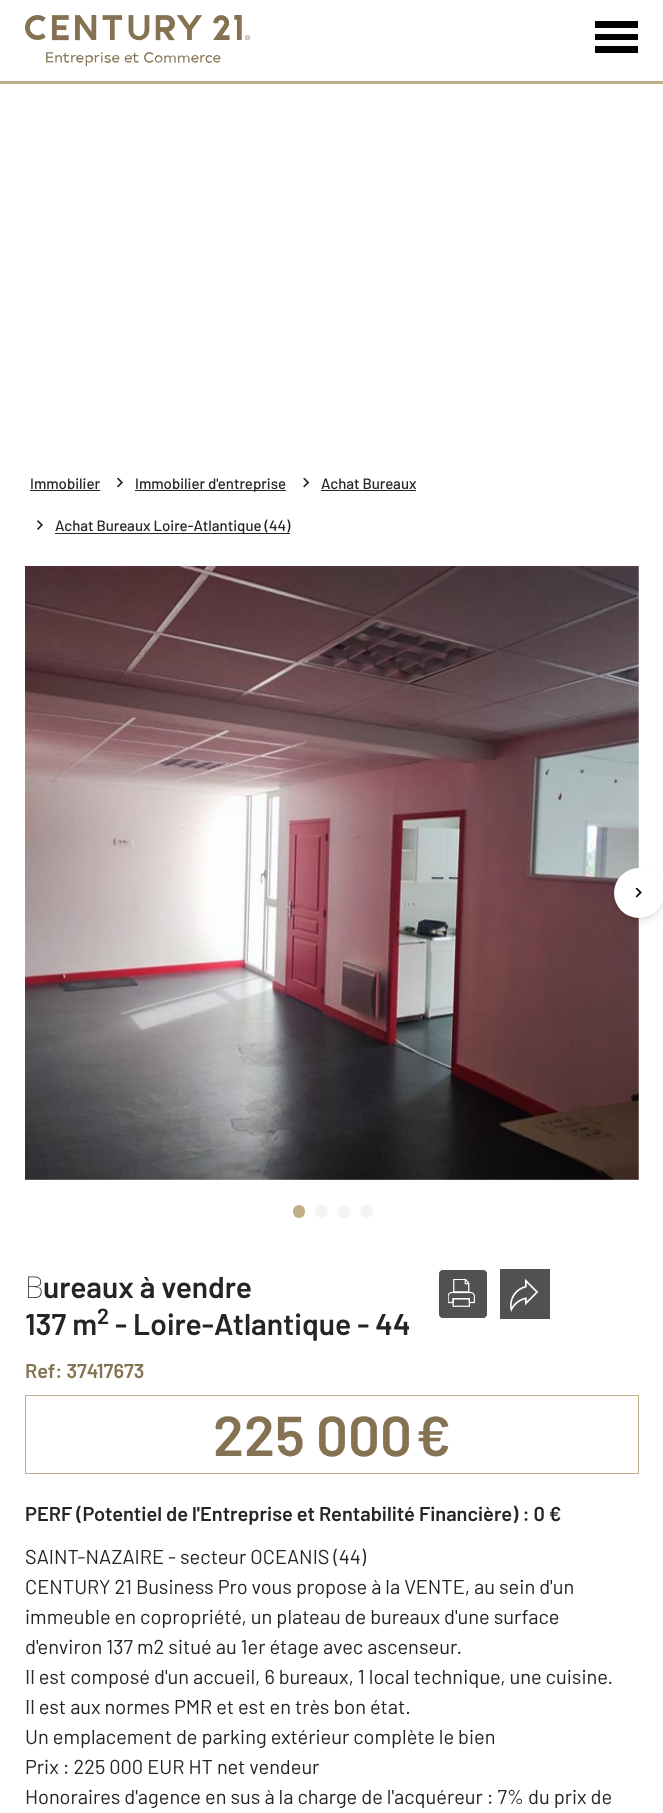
async function draw(canvas) {
	canvas.width = 663;
	canvas.height = 1813;
	const c = canvas.getContext('2d');
	c.miterLimit = 4;
	c.fontKerning = 'normal';
	async function loadImage(src) {
		const img = new Image();
		img.src = src;
		await img.decode();
		return img;
	}

	c.fillStyle = '#fff';
	c.fillRect(0, 0, 663, 1813);
	c.fillStyle = '#beaf87';
	c.fillRect(0, 81, 663, 3);
	c.drawImage(await loadImage('img1.png'), 25, 15, 225, 51);
	for (const [x, y, w, h, color] of [
		[595, 46, 43, 7, '#000'],
		[595, 21, 43, 7, '#000'],
		[595, 34, 43, 6, '#000'],
	]) {
		c.fillStyle = color;
		c.fillRect(x, y, w, h);
	}
	c.font = '500 15px Barlow';
	c.fillStyle = '#252526';
	c.fillText('Immobilier', 30, 489);
	c.fillRect(30, 490, 70, 1);
	c.drawImage(await loadImage('img2.png'), 117, 478, 6, 10);
	c.fillRect(135, 490, 151, 1);
	c.fillText('Immobilier d\'entreprise', 135, 489);
	c.drawImage(await loadImage('img3.png'), 303, 478, 7, 10);
	c.fillText('Achat Bureaux', 321, 489);
	c.fillRect(321, 490, 95, 1);
	c.drawImage(await loadImage('img4.png'), 37, 520, 6, 10);
	c.fillRect(55, 533, 235, 1);
	c.fillText('Achat Bureaux Loire-Atlantique (44)', 55, 531);
	c.drawImage(await loadImage('img5.png'), 25, 566, 614, 614);
	c.fillStyle = '#0000001a';
	c.filter = 'blur(2.5px)';
	c.beginPath();
	c.roundRect(616, 873, 45, 45, 22.5);
	c.fill();
	c.filter = 'none';
	c.filter = 'blur(4px)';
	c.beginPath();
	c.roundRect(615, 874, 48, 47, 23.5);
	c.fill();
	c.filter = 'none';
	c.fillStyle = '#fff';
	c.beginPath();
	c.arc(639, 893, 25, 0, 2 * Math.PI);
	c.fill();
	c.drawImage(await loadImage('img6.png'), 635, 888, 7, 10);
	c.fillStyle = '#beaf87';
	c.beginPath();
	c.roundRect(293, 1205, 12, 13, 6);
	c.fill();
	c.fillStyle = '#f4f4f4';
	c.beginPath();
	c.arc(321.5, 1211.5, 6.5, 0, 2 * Math.PI);
	c.fill();
	c.beginPath();
	c.roundRect(338, 1205, 12, 13, 6);
	c.fill();
	c.beginPath();
	c.arc(366.5, 1211.5, 6.5, 0, 2 * Math.PI);
	c.fill();
	c.font = '100 30px Noto Sans';
	c.fillStyle = '#252526';
	c.fillText('B', 25, 1298);
	c.font = '600 30px Barlow';
	c.fillText('ureaux à vendre', 43, 1298);
	c.fillText('137 m', 25, 1335);
	c.font = '600 22px Barlow';
	c.fillText('2', 97, 1324);
	c.font = '600 30px Barlow';
	c.fillText('- Loire-Atlantique - 44', 115, 1335);
	c.fillStyle = '#515151';
	c.beginPath();
	c.roundRect(438.5, 1269.5, 49, 49, 4.5);
	c.fill();
	c.strokeStyle = '#fff';
	c.stroke();
	c.drawImage(await loadImage('img7.png'), 448, 1279, 27, 28);
	c.fillRect(500, 1269, 50, 50);
	c.drawImage(await loadImage('img8.png'), 510, 1279, 29, 33);
	c.font = '600 20px Barlow';
	c.fillStyle = '#847252';
	c.fillText('Ref: 37417673', 25, 1378);
	c.strokeStyle = '#beaf87';
	c.strokeRect(25.5, 1395.5, 613, 78);
	c.font = '600 56.25px Barlow';
	c.fillText('225 000 €', 213, 1456);
	c.font = '600 20px Barlow';
	c.fillStyle = '#252526';
	c.fillText('PERF (Potentiel de l\'Entreprise et Rentabilité Financière) : 0 €', 25, 1521);
	c.font = '20px Barlow';
	for (const [text, x, y] of [
		['SAINT-NAZAIRE - secteur OCEANIS (44)', 25, 1564],
		['CENTURY 21 Business Pro vous propose à la VENTE, au sein d\'un', 25, 1594],
		['immeuble en copropriété, un plateau de bureaux d\'une surface', 25, 1624],
		['d\'environ 137 m2 situé au 1er étage avec ascenseur.', 25, 1654],
		['Il est composé d\'un accueil, 6 bureaux, 1 local technique, une cuisine.', 25, 1684],
		['Il est aux normes PMR et est en très bon état.', 25, 1714],
		['Un emplacement de parking extérieur complète le bien', 25, 1744],
		['Prix : 225 000 EUR HT net vendeur', 25, 1774],
		['Honoraires d\'agence en sus à la charge de l\'acquéreur : 7% du prix de', 25, 1804],
	]) {
		c.fillText(text, x, y);
	}
}

draw(document.querySelector('canvas'));
